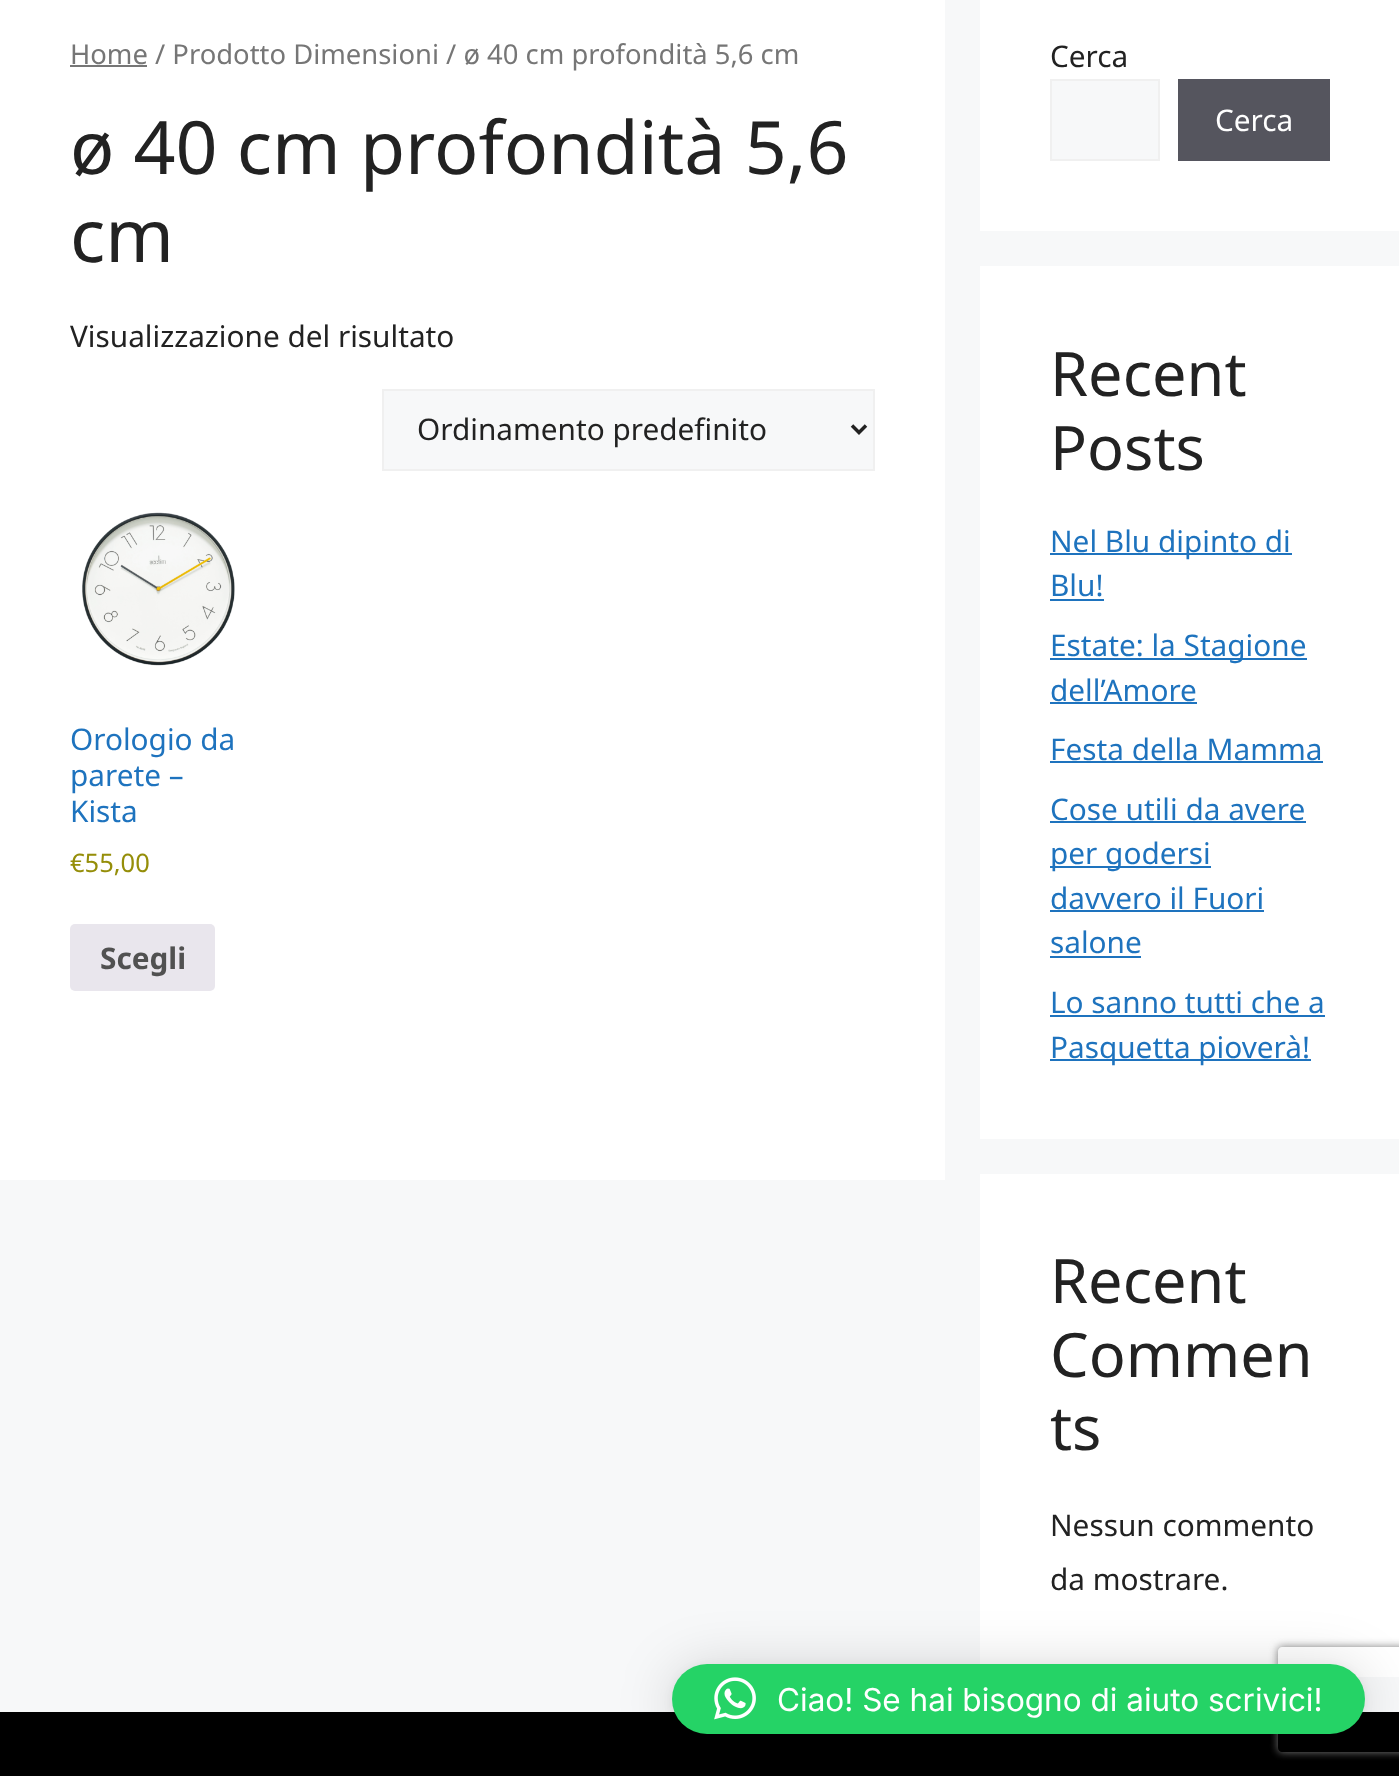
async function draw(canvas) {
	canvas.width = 1399;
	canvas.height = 1776;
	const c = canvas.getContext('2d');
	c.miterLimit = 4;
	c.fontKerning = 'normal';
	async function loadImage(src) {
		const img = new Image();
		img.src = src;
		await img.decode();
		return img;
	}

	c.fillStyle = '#f7f8f9';
	c.fillRect(0, 0, 1399, 1776);
	c.fillStyle = '#fff';
	c.fillRect(0, 0, 945, 1180);
	c.fillStyle = '#767676';
	c.fillRect(70, 65, 77, 2);
	c.font = '27.4px Noto Sans';
	c.fillText('Home / Prodotto Dimensioni / ø 40 cm profondità 5,6 cm', 70, 64);
	c.font = '73.5px Noto Sans';
	c.fillStyle = '#222';
	c.fillText('ø 40 cm profondità 5,6', 70, 174);
	c.fillText('cm', 70, 262);
	c.font = '29.75px Noto Sans';
	c.fillText('Visualizzazione del risultato', 70, 347);
	c.fillStyle = '#f7f8f9';
	c.beginPath();
	c.rect(383, 390, 491, 80);
	c.fill();
	c.strokeStyle = '#f0f0f0';
	c.lineWidth = 2;
	c.stroke();
	c.beginPath();
	c.moveTo(852, 425.5);
	c.lineTo(859, 432.5);
	c.lineTo(866, 425.5);
	c.strokeStyle = '#222';
	c.lineWidth = 3.5;
	c.stroke();
	c.fillStyle = '#222';
	c.fillText('Ordinamento predefinito', 417, 440);
	c.drawImage(await loadImage('img1.png'), 82, 512, 153, 154);
	c.fillStyle = '#1e73be';
	for (const [text, x, y] of [
		['Orologio da', 70, 750],
		['parete –', 70, 786],
		['Kista', 70, 822],
	]) {
		c.fillText(text, x, y);
	}
	c.font = '25.5px Noto Sans';
	c.fillStyle = '#958e09';
	c.fillText('€55,00', 70, 872);
	c.fillStyle = '#e9e6ed';
	c.beginPath();
	c.roundRect(70, 924, 145, 67, 5);
	c.fill();
	c.font = 'bold 29.75px Noto Sans';
	c.fillStyle = '#515151';
	c.fillText('Scegli', 100, 969);
	c.fillStyle = '#fff';
	c.fillRect(980, 0, 419, 231);
	c.font = '29.75px Noto Sans';
	c.fillStyle = '#222';
	c.fillText('Cerca', 1050, 67);
	c.fillStyle = '#f7f8f9';
	c.beginPath();
	c.rect(1051, 80, 108, 80);
	c.fill();
	c.strokeStyle = '#f0f0f0';
	c.lineWidth = 2;
	c.stroke();
	c.fillStyle = '#55555e';
	c.fillRect(1178, 79, 152, 82);
	c.fillStyle = '#fff';
	c.fillText('Cerca', 1215, 131);
	c.fillRect(980, 266, 419, 873);
	c.font = '61.25px Noto Sans';
	c.fillStyle = '#222';
	c.fillText('Recent', 1050, 396);
	c.fillText('Posts', 1050, 470);
	c.fillStyle = '#1e73be';
	c.fillRect(1050, 553, 242, 2);
	c.font = '29.75px Noto Sans';
	c.fillText('Nel Blu dipinto di', 1050, 552);
	c.fillText('Blu!', 1050, 596);
	c.fillRect(1050, 599, 54, 2);
	c.fillRect(1050, 658, 257, 2);
	c.fillText('Estate: la Stagione', 1050, 656);
	c.fillText('dell’Amore', 1050, 701);
	c.fillRect(1050, 702, 147, 2);
	c.fillText('Festa della Mamma', 1050, 760);
	c.fillRect(1050, 761, 273, 2);
	c.fillText('Cose utili da avere', 1050, 820);
	c.fillRect(1050, 821, 256, 2);
	c.fillRect(1050, 866, 161, 2);
	c.fillText('per godersi', 1050, 864);
	c.fillText('davvero il Fuori', 1050, 909);
	c.fillRect(1050, 910, 214, 2);
	c.fillText('salone', 1050, 953);
	c.fillRect(1050, 956, 91, 2);
	c.fillText('Lo sanno tutti che a', 1050, 1013);
	c.fillRect(1050, 1015, 275, 2);
	c.fillRect(1050, 1059, 261, 2);
	c.fillText('Pasquetta pioverà!', 1050, 1058);
	c.fillStyle = '#fff';
	c.fillRect(980, 1174, 419, 503);
	c.font = '61.25px Noto Sans';
	c.fillStyle = '#222';
	for (const [text, x, y] of [
		['Recent', 1050, 1303],
		['Commen', 1050, 1377],
		['ts', 1050, 1450],
	]) {
		c.fillText(text, x, y);
	}
	c.font = '29.75px Noto Sans';
	c.fillText('Nessun commento', 1050, 1536);
	c.fillText('da mostrare.', 1050, 1590);
	c.fillStyle = '#000';
	c.fillRect(0, 1712, 1399, 64);
	c.save();
	c.beginPath();
	c.moveTo(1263, 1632);
	c.lineTo(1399, 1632);
	c.lineTo(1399, 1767);
	c.lineTo(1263, 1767);
	c.closePath();
	c.moveTo(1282, 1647);
	c.lineTo(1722, 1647);
	c.bezierCurveTo(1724, 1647, 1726, 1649, 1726, 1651);
	c.lineTo(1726, 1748);
	c.bezierCurveTo(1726, 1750, 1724, 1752, 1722, 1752);
	c.lineTo(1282, 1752);
	c.bezierCurveTo(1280, 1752, 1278, 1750, 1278, 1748);
	c.lineTo(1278, 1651);
	c.bezierCurveTo(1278, 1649, 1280, 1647, 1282, 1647);
	c.closePath();
	c.clip('evenodd');
	c.fillStyle = '#808080';
	c.filter = 'blur(4.5px)';
	c.beginPath();
	c.roundRect(1278, 1647, 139, 105, 4);
	c.fill();
	c.filter = 'none';
	c.restore();
	c.fillStyle = '#00000029';
	c.filter = 'blur(28px)';
	c.beginPath();
	c.roundRect(672, 1668, 693, 70, 35);
	c.fill();
	c.filter = 'none';
	c.fillStyle = '#0000000f';
	c.filter = 'blur(5px)';
	c.beginPath();
	c.roundRect(672, 1666, 693, 70, 35);
	c.fill();
	c.filter = 'none';
	c.fillStyle = '#25d366';
	c.beginPath();
	c.roundRect(672, 1664, 693, 70, 35);
	c.fill();
	c.drawImage(await loadImage('img2.png'), 714, 1677, 42, 43);
	c.font = '31.5px Inter';
	c.fillStyle = '#fff';
	c.fillText('Ciao! Se hai bisogno di aiuto scrivici!', 777, 1711);
}

draw(document.querySelector('canvas'));
